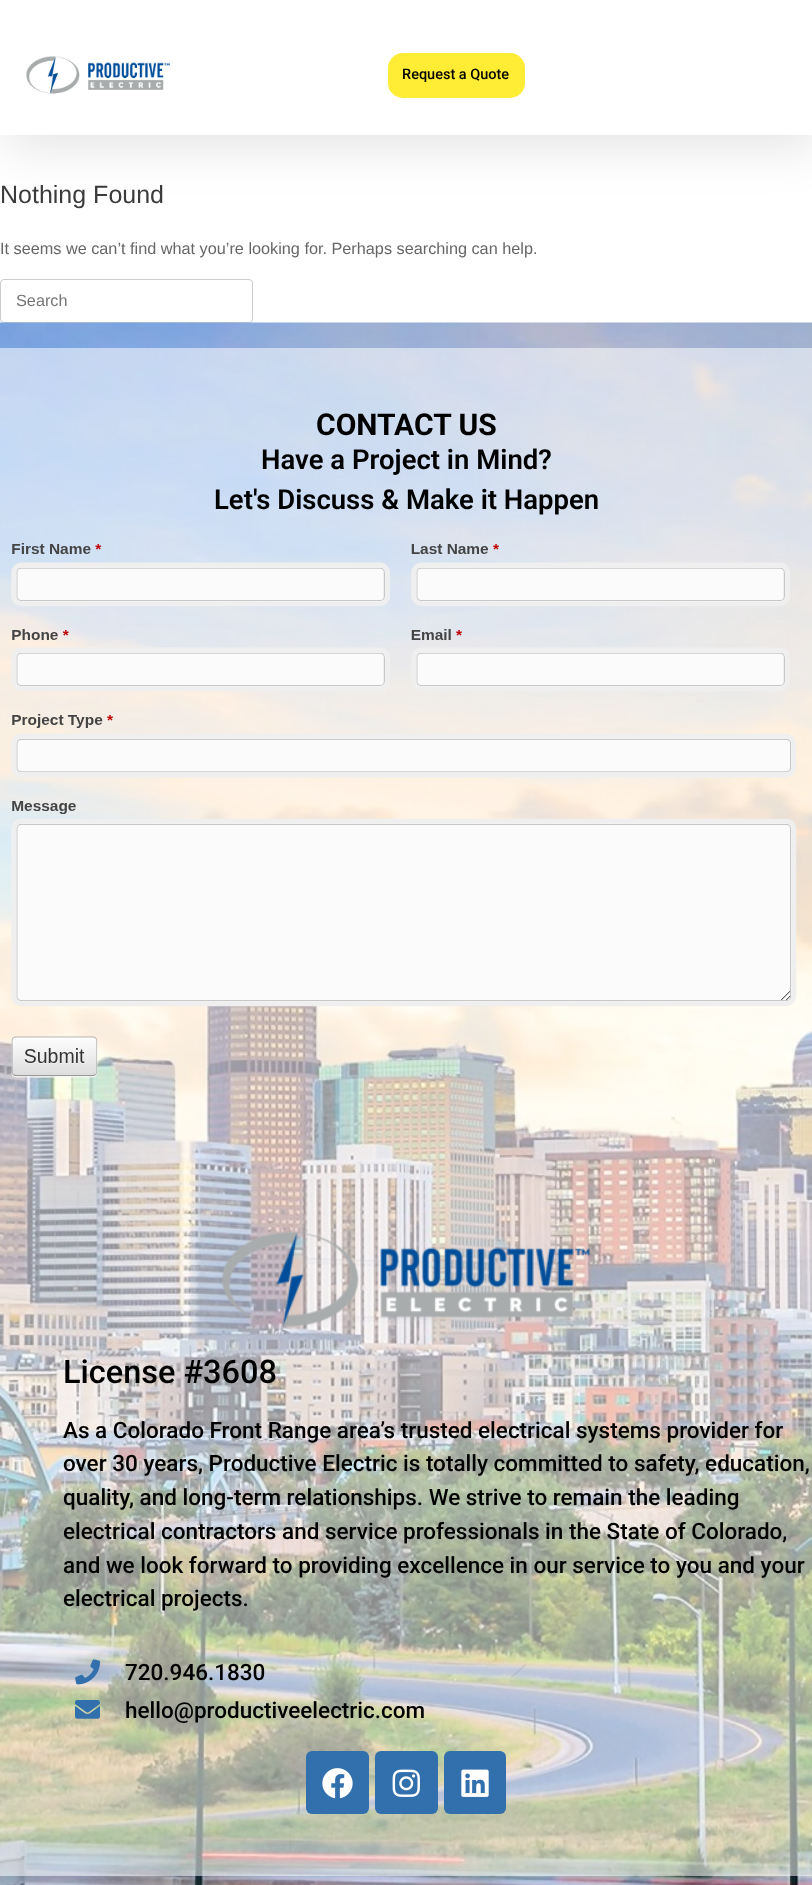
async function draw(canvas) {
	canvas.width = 812;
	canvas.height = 1885;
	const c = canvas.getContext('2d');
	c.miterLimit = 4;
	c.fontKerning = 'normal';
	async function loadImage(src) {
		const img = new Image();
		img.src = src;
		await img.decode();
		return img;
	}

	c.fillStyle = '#fff';
	c.fillRect(0, 0, 812, 1885);
	c.fillStyle = '#0000001a';
	c.filter = 'blur(24px)';
	c.beginPath();
	c.rect(6, 13, 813, 135);
	c.fill();
	c.filter = 'none';
	c.fillStyle = '#fff';
	c.fillRect(0, 0, 812, 135);
	c.drawImage(await loadImage('img1.png'), 26, 56, 144, 38);
	c.fillStyle = '#ffec35';
	c.beginPath();
	c.roundRect(388, 53, 137, 45, 15);
	c.fill();
	c.font = '500 14.5px Roboto';
	c.fillStyle = '#000';
	c.fillText('Request a Quote', 402, 79);
	c.font = '25px Liberation Sans';
	c.fillStyle = '#3b3b3b';
	c.fillText('Nothing Found', 0, 203);
	c.font = '16.25px Liberation Sans';
	c.fillStyle = '#666';
	c.fillText('It seems we can’t find what you’re looking for. Perhaps searching can help.', 0, 254);
	c.beginPath();
	c.roundRect(0.5, 279.5, 252, 43, 3.5);
	c.strokeStyle = '#ccc';
	c.stroke();
	c.fillStyle = '#757575';
	c.fillText('Search', 16, 306);
	c.drawImage(await loadImage('img2.png'), 0, 322, 812, 1563);
	c.fillStyle = '#ffffff8a';
	c.fillRect(0, 348, 812, 881);
	c.font = 'bold 30px Roboto';
	c.fillStyle = '#000';
	c.fillText('CONTACT US', 316, 435);
	c.font = '600 27.5px Roboto';
	c.fillText('Have a Project in Mind?', 261, 469);
	c.fillText('Let\'s Discuss & Make it Happen', 214, 509);
	c.drawImage(await loadImage('img3.png'), 11, 543, 786, 535);
	c.fillStyle = '#ffffff8a';
	c.fillRect(0, 1229, 812, 647);
	c.drawImage(await loadImage('img4.png'), 221, 1231, 370, 96);
	c.font = '500 32.5px Roboto';
	c.fillStyle = '#000';
	c.fillText('License #3608', 63, 1383);
	c.font = '500 22.5px Roboto';
	for (const [text, x, y] of [
		['As a Colorado Front Range area’s trusted electrical systems provider for', 63, 1438],
		['over 30 years, Productive Electric is totally committed to safety, education,', 63, 1471],
		['quality, and long-term relationships. We strive to remain the leading', 63, 1505],
		['electrical contractors and service professionals in the State of Colorado,', 63, 1539],
		['and we look forward to providing excellence in our service to you and your', 63, 1573],
		['electrical projects.', 63, 1606],
	]) {
		c.fillText(text, x, y);
	}
	c.drawImage(await loadImage('img5.png'), 75, 1659, 25, 26);
	c.fillText('720.946.1830', 125, 1680);
	c.drawImage(await loadImage('img6.png'), 75, 1700, 25, 19);
	c.fillText('hello@productiveelectric.com', 125, 1718);
	c.fillStyle = '#3270ad';
	c.beginPath();
	c.roundRect(306, 1751, 63, 63, 6);
	c.fill();
	c.drawImage(await loadImage('img7.png'), 322, 1768, 31, 31);
	c.beginPath();
	c.roundRect(375, 1751, 63, 63, 6);
	c.fill();
	c.drawImage(await loadImage('img8.png'), 392, 1769, 28, 28);
	c.beginPath();
	c.roundRect(444, 1751, 62, 63, 6);
	c.fill();
	c.drawImage(await loadImage('img9.png'), 461, 1769, 28, 28);
}

draw(document.querySelector('canvas'));
